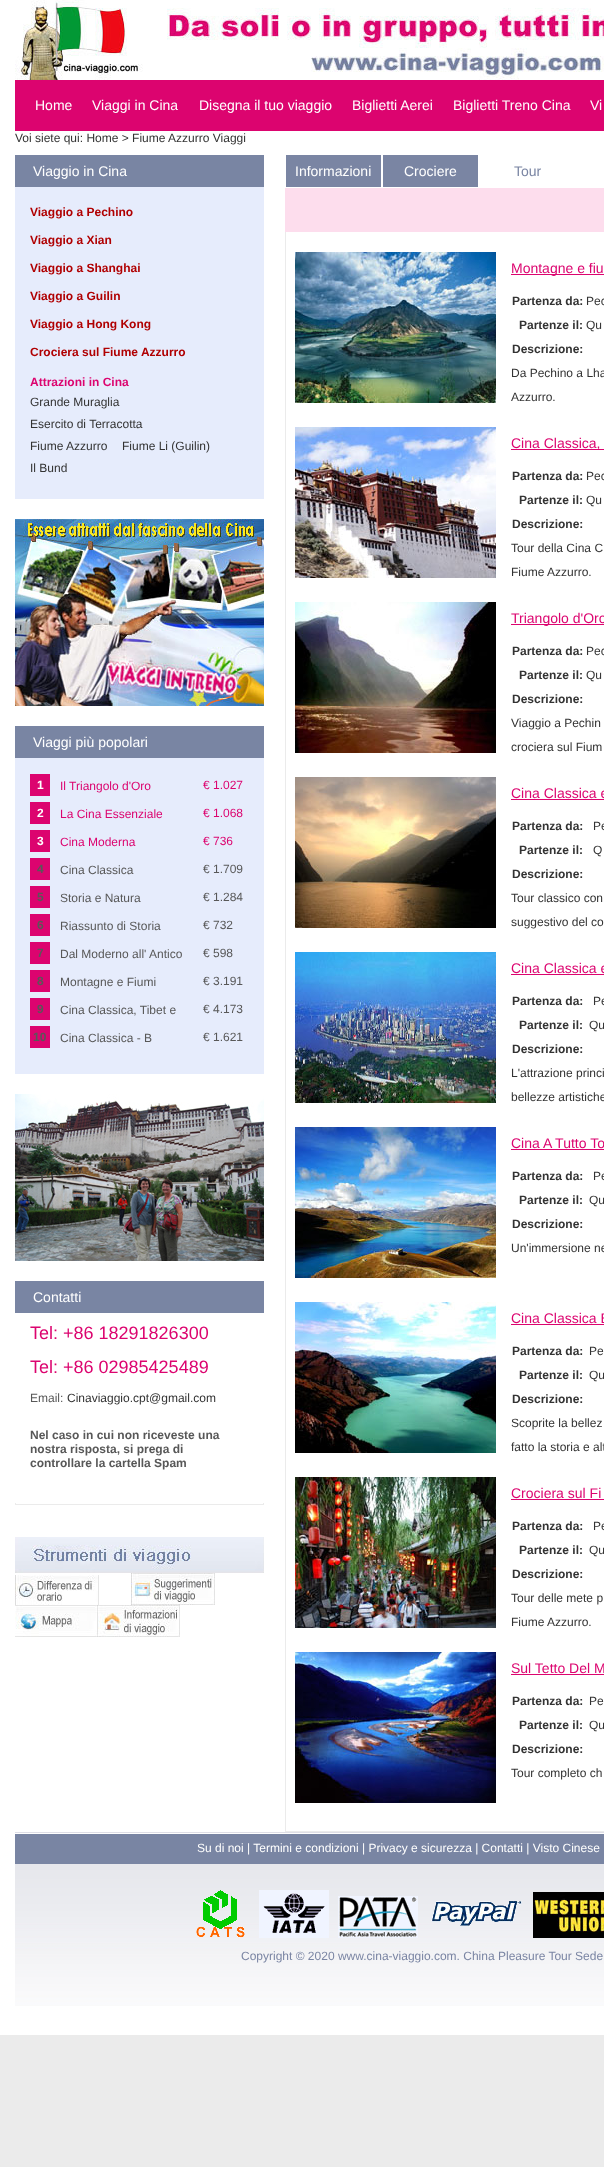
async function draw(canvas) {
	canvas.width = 604;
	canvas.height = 2167;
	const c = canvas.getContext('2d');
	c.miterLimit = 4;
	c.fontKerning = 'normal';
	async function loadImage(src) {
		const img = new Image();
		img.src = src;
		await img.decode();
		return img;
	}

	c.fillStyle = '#ebebeb';
	c.fillRect(0, 0, 604, 2167);
	c.fillStyle = '#fff';
	c.fillRect(0, 0, 604, 2035);
	c.drawImage(await loadImage('img1.png'), 15, 0, 589, 80);
	c.fillStyle = '#dc046f';
	c.fillRect(15, 80, 589, 51);
	c.font = '14px Liberation Sans';
	c.fillStyle = '#fff';
	for (const [text, x, y] of [
		['Home', 35, 110],
		['Viaggi in Cina', 92, 110],
		['Disegna il tuo viaggio', 199, 110],
		['Biglietti Aerei', 352, 110],
		['Biglietti Treno Cina', 453, 110],
		['Vi', 590, 110],
	]) {
		c.fillText(text, x, y);
	}
	c.font = '12px Liberation Sans';
	c.fillStyle = '#333';
	c.fillText('Voi siete qui: Home > Fiume Azzurro Viaggi', 15, 142);
	c.fillStyle = '#7985a3';
	c.fillRect(15, 155, 249, 32);
	c.font = '14px Liberation Sans';
	c.fillStyle = '#fff';
	c.fillText('Viaggio in Cina', 33, 176);
	c.fillStyle = '#e6ecfc';
	c.fillRect(15, 187, 249, 312);
	c.font = 'bold 12px Liberation Sans';
	c.fillStyle = '#b00002';
	for (const [text, x, y] of [
		['Viaggio a Pechino', 30, 216],
		['Viaggio a Xian', 30, 244],
		['Viaggio a Shanghai', 30, 272],
		['Viaggio a Guilin', 30, 300],
		['Viaggio a Hong Kong', 30, 328],
		['Crociera sul Fiume Azzurro', 30, 356],
	]) {
		c.fillText(text, x, y);
	}
	c.fillStyle = '#dc046f';
	c.fillText('Attrazioni in Cina', 30, 386);
	c.font = '12px Liberation Sans';
	c.fillStyle = '#333';
	for (const [text, x, y] of [
		['Grande Muraglia', 30, 406],
		['Esercito di Terracotta', 30, 428],
		['Fiume Azzurro', 30, 450],
		['Fiume Li (Guilin)', 122, 450],
		['Il Bund', 30, 472],
	]) {
		c.fillText(text, x, y);
	}
	c.drawImage(await loadImage('img2.png'), 15, 519, 249, 187);
	c.fillStyle = '#7985a3';
	c.fillRect(15, 726, 249, 32);
	c.font = '14px Liberation Sans';
	c.fillStyle = '#fff';
	c.fillText('Viaggi più popolari', 33, 747);
	c.fillStyle = '#e6ecfc';
	c.fillRect(15, 758, 249, 316);
	c.fillStyle = '#dc046f';
	c.fillRect(30, 774, 20, 22);
	c.font = 'bold 12px Liberation Sans';
	c.fillStyle = '#fff';
	c.fillText('1', 37, 789);
	c.font = '12px Liberation Sans';
	c.fillStyle = '#dc046f';
	c.fillText('Il Triangolo d\'Oro', 60, 790);
	c.fillText('€ 1.027', 203, 789);
	c.fillRect(30, 802, 20, 22);
	c.font = 'bold 12px Liberation Sans';
	c.fillStyle = '#fff';
	c.fillText('2', 37, 817);
	c.font = '12px Liberation Sans';
	c.fillStyle = '#dc046f';
	c.fillText('La Cina Essenziale', 60, 818);
	c.fillText('€ 1.068', 203, 817);
	c.fillRect(30, 830, 20, 22);
	c.font = 'bold 12px Liberation Sans';
	c.fillStyle = '#fff';
	c.fillText('3', 37, 845);
	c.font = '12px Liberation Sans';
	c.fillStyle = '#dc046f';
	c.fillText('Cina Moderna', 60, 846);
	c.fillText('€ 736', 203, 845);
	c.fillRect(30, 858, 20, 22);
	c.font = 'bold 12px Liberation Sans';
	c.fillStyle = '#585858';
	c.fillText('4', 37, 873);
	c.font = '12px Liberation Sans';
	c.fillText('Cina Classica', 60, 874);
	c.fillText('€ 1.709', 203, 873);
	c.fillStyle = '#dc046f';
	c.fillRect(30, 886, 20, 22);
	c.font = 'bold 12px Liberation Sans';
	c.fillStyle = '#585858';
	c.fillText('5', 37, 901);
	c.font = '12px Liberation Sans';
	c.fillText('Storia e Natura', 60, 902);
	c.fillText('€ 1.284', 203, 901);
	c.fillStyle = '#dc046f';
	c.fillRect(30, 914, 20, 22);
	c.font = 'bold 12px Liberation Sans';
	c.fillStyle = '#585858';
	c.fillText('6', 37, 929);
	c.font = '12px Liberation Sans';
	c.fillText('Riassunto di Storia', 60, 930);
	c.fillText('€ 732', 203, 929);
	c.fillStyle = '#dc046f';
	c.fillRect(30, 942, 20, 22);
	c.font = 'bold 12px Liberation Sans';
	c.fillStyle = '#585858';
	c.fillText('7', 37, 957);
	c.font = '12px Liberation Sans';
	c.fillText('Dal Moderno all\' Antico', 60, 958);
	c.fillText('€ 598', 203, 957);
	c.fillStyle = '#dc046f';
	c.fillRect(30, 970, 20, 22);
	c.font = 'bold 12px Liberation Sans';
	c.fillStyle = '#585858';
	c.fillText('8', 37, 985);
	c.font = '12px Liberation Sans';
	c.fillText('Montagne e Fiumi', 60, 986);
	c.fillText('€ 3.191', 203, 985);
	c.fillStyle = '#dc046f';
	c.fillRect(30, 998, 20, 22);
	c.font = 'bold 12px Liberation Sans';
	c.fillStyle = '#585858';
	c.fillText('9', 37, 1013);
	c.font = '12px Liberation Sans';
	c.fillText('Cina Classica, Tibet e', 60, 1014);
	c.fillText('€ 4.173', 203, 1013);
	c.fillStyle = '#dc046f';
	c.fillRect(30, 1026, 20, 22);
	c.font = 'bold 12px Liberation Sans';
	c.fillStyle = '#585858';
	c.fillText('10', 33, 1041);
	c.font = '12px Liberation Sans';
	c.fillText('Cina Classica - B', 60, 1042);
	c.fillText('€ 1.621', 203, 1041);
	c.drawImage(await loadImage('img3.png'), 15, 1094, 249, 167);
	c.fillStyle = '#7985a3';
	c.fillRect(15, 1281, 249, 32);
	c.font = '14px Liberation Sans';
	c.fillStyle = '#fff';
	c.fillText('Contatti', 33, 1302);
	c.font = '18px Liberation Sans';
	c.fillStyle = '#dc046f';
	c.fillText('Tel: +86 18291826300', 30, 1339);
	c.fillText('Tel: +86 02985425489', 30, 1373);
	c.font = '12px Liberation Sans';
	c.fillStyle = '#585858';
	c.fillText('Email:', 30, 1402);
	c.fillStyle = '#333';
	c.fillText('Cinaviaggio.cpt@gmail.com', 67, 1402);
	c.font = 'bold 12px Liberation Sans';
	c.fillStyle = '#585858';
	for (const [text, x, y] of [
		['Nel caso in cui non riceveste una', 30, 1439],
		['nostra risposta, si prega di', 30, 1453],
		['controllare la cartella Spam', 30, 1467],
	]) {
		c.fillText(text, x, y);
	}
	c.drawImage(await loadImage('img4.png'), 15, 1503, 249, 2);
	c.drawImage(await loadImage('img5.png'), 15, 1537, 249, 36);
	c.drawImage(await loadImage('img6.png'), 15, 1575, 84, 30);
	c.drawImage(await loadImage('img7.png'), 131, 1573, 84, 32);
	c.drawImage(await loadImage('img8.png'), 15, 1605, 83, 32);
	c.drawImage(await loadImage('img9.png'), 98, 1605, 82, 32);
	c.fillStyle = '#7a85a3';
	c.fillRect(286, 155, 95, 32);
	c.font = '14px Liberation Sans';
	c.fillStyle = '#fff';
	c.fillText('Informazioni', 295, 176);
	c.fillStyle = '#7a85a3';
	c.fillRect(383, 155, 95, 32);
	c.fillStyle = '#fff';
	c.fillText('Crociere', 404, 176);
	c.fillStyle = '#7a85a3';
	c.fillText('Tour', 514, 176);
	c.fillStyle = '#fddded';
	c.fillRect(285, 188, 319, 44);
	c.fillStyle = '#ebebeb';
	c.fillRect(285, 232, 1, 1598);
	c.drawImage(await loadImage('img10.png'), 295, 252, 201, 151);
	c.fillStyle = '#dc046f';
	c.fillRect(511, 274, 93, 1);
	c.fillText('Montagne e fiu', 511, 273);
	c.font = 'bold 12px Liberation Sans';
	c.fillStyle = '#333';
	c.fillText('Partenza da:', 512, 305);
	c.font = '12px Liberation Sans';
	c.fillText('Pec', 586, 305);
	c.font = 'bold 12px Liberation Sans';
	c.fillText('Partenze il:', 519, 329);
	c.font = '12px Liberation Sans';
	c.fillText('Qu', 586, 329);
	c.font = 'bold 12px Liberation Sans';
	c.fillText('Descrizione:', 512, 353);
	c.font = '12px Liberation Sans';
	c.fillText('Da Pechino a Lha', 511, 377);
	c.fillText('Azzurro.', 511, 401);
	c.drawImage(await loadImage('img11.png'), 295, 427, 201, 151);
	c.fillStyle = '#dc046f';
	c.fillRect(511, 449, 93, 1);
	c.font = '14px Liberation Sans';
	c.fillText('Cina Classica,', 511, 448);
	c.font = 'bold 12px Liberation Sans';
	c.fillStyle = '#333';
	c.fillText('Partenza da:', 512, 480);
	c.font = '12px Liberation Sans';
	c.fillText('Pec', 586, 480);
	c.font = 'bold 12px Liberation Sans';
	c.fillText('Partenze il:', 519, 504);
	c.font = '12px Liberation Sans';
	c.fillText('Qu', 586, 504);
	c.font = 'bold 12px Liberation Sans';
	c.fillText('Descrizione:', 512, 528);
	c.font = '12px Liberation Sans';
	c.fillText('Tour della Cina C', 511, 552);
	c.fillText('Fiume Azzurro.', 511, 576);
	c.drawImage(await loadImage('img12.png'), 295, 602, 201, 151);
	c.fillStyle = '#dc046f';
	c.fillRect(511, 624, 93, 1);
	c.font = '14px Liberation Sans';
	c.fillText('Triangolo d\'Oro', 511, 623);
	c.font = 'bold 12px Liberation Sans';
	c.fillStyle = '#333';
	c.fillText('Partenza da:', 512, 655);
	c.font = '12px Liberation Sans';
	c.fillText('Pec', 586, 655);
	c.font = 'bold 12px Liberation Sans';
	c.fillText('Partenze il:', 519, 679);
	c.font = '12px Liberation Sans';
	c.fillText('Qu', 586, 679);
	c.font = 'bold 12px Liberation Sans';
	c.fillText('Descrizione:', 512, 703);
	c.font = '12px Liberation Sans';
	c.fillText('Viaggio a Pechin', 511, 727);
	c.fillText('crociera sul Fium', 511, 751);
	c.drawImage(await loadImage('img13.png'), 295, 777, 201, 151);
	c.font = '14px Liberation Sans';
	c.fillStyle = '#dc046f';
	c.fillText('Cina Classica e', 511, 798);
	c.fillRect(511, 799, 93, 1);
	c.font = 'bold 12px Liberation Sans';
	c.fillStyle = '#333';
	c.fillText('Partenza da:', 512, 830);
	c.font = '12px Liberation Sans';
	c.fillText('Pe', 593, 830);
	c.font = 'bold 12px Liberation Sans';
	c.fillText('Partenze il:', 519, 854);
	c.font = '12px Liberation Sans';
	c.fillText('Q', 593, 854);
	c.font = 'bold 12px Liberation Sans';
	c.fillText('Descrizione:', 512, 878);
	c.font = '12px Liberation Sans';
	c.fillText('Tour classico con', 511, 902);
	c.fillText('suggestivo del co', 511, 926);
	c.drawImage(await loadImage('img14.png'), 295, 952, 201, 151);
	c.font = '14px Liberation Sans';
	c.fillStyle = '#dc046f';
	c.fillText('Cina Classica e', 511, 973);
	c.fillRect(511, 974, 93, 1);
	c.font = 'bold 12px Liberation Sans';
	c.fillStyle = '#333';
	c.fillText('Partenza da:', 512, 1005);
	c.font = '12px Liberation Sans';
	c.fillText('Pe', 593, 1005);
	c.font = 'bold 12px Liberation Sans';
	c.fillText('Partenze il:', 519, 1029);
	c.font = '12px Liberation Sans';
	c.fillText('Qu', 589, 1029);
	c.font = 'bold 12px Liberation Sans';
	c.fillText('Descrizione:', 512, 1053);
	c.font = '12px Liberation Sans';
	c.fillText('L\'attrazione princi', 511, 1077);
	c.fillText('bellezze artistiche', 511, 1101);
	c.drawImage(await loadImage('img15.png'), 295, 1127, 201, 151);
	c.font = '14px Liberation Sans';
	c.fillStyle = '#dc046f';
	c.fillText('Cina A Tutto To', 511, 1148);
	c.fillRect(511, 1149, 93, 1);
	c.font = 'bold 12px Liberation Sans';
	c.fillStyle = '#333';
	c.fillText('Partenza da:', 512, 1180);
	c.font = '12px Liberation Sans';
	c.fillText('Pe', 593, 1180);
	c.font = 'bold 12px Liberation Sans';
	c.fillText('Partenze il:', 519, 1204);
	c.font = '12px Liberation Sans';
	c.fillText('Qu', 589, 1204);
	c.font = 'bold 12px Liberation Sans';
	c.fillText('Descrizione:', 512, 1228);
	c.font = '12px Liberation Sans';
	c.fillText('Un\'immersione ne', 511, 1252);
	c.drawImage(await loadImage('img16.png'), 295, 1302, 201, 151);
	c.font = '14px Liberation Sans';
	c.fillStyle = '#dc046f';
	c.fillText('Cina Classica E', 511, 1323);
	c.fillRect(511, 1324, 93, 1);
	c.font = 'bold 12px Liberation Sans';
	c.fillStyle = '#333';
	c.fillText('Partenza da:', 512, 1355);
	c.font = '12px Liberation Sans';
	c.fillText('Pe', 589, 1355);
	c.font = 'bold 12px Liberation Sans';
	c.fillText('Partenze il:', 519, 1379);
	c.font = '12px Liberation Sans';
	c.fillText('Qu', 589, 1379);
	c.font = 'bold 12px Liberation Sans';
	c.fillText('Descrizione:', 512, 1403);
	c.font = '12px Liberation Sans';
	c.fillText('Scoprite la bellez', 511, 1427);
	c.fillText('fatto la storia e alt', 511, 1451);
	c.drawImage(await loadImage('img17.png'), 295, 1477, 201, 151);
	c.font = '14px Liberation Sans';
	c.fillStyle = '#dc046f';
	c.fillText('Crociera sul Fi', 511, 1498);
	c.fillRect(511, 1499, 93, 1);
	c.font = 'bold 12px Liberation Sans';
	c.fillStyle = '#333';
	c.fillText('Partenza da:', 512, 1530);
	c.font = '12px Liberation Sans';
	c.fillText('Pe', 593, 1530);
	c.font = 'bold 12px Liberation Sans';
	c.fillText('Partenze il:', 519, 1554);
	c.font = '12px Liberation Sans';
	c.fillText('Qu', 589, 1554);
	c.font = 'bold 12px Liberation Sans';
	c.fillText('Descrizione:', 512, 1578);
	c.font = '12px Liberation Sans';
	c.fillText('Tour delle mete p', 511, 1602);
	c.fillText('Fiume Azzurro.', 511, 1626);
	c.drawImage(await loadImage('img18.png'), 295, 1652, 201, 151);
	c.font = '14px Liberation Sans';
	c.fillStyle = '#dc046f';
	c.fillText('Sul Tetto Del M', 511, 1673);
	c.fillRect(511, 1674, 93, 1);
	c.font = 'bold 12px Liberation Sans';
	c.fillStyle = '#333';
	c.fillText('Partenza da:', 512, 1705);
	c.font = '12px Liberation Sans';
	c.fillText('Pe', 589, 1705);
	c.font = 'bold 12px Liberation Sans';
	c.fillText('Partenze il:', 519, 1729);
	c.font = '12px Liberation Sans';
	c.fillText('Qu', 589, 1729);
	c.font = 'bold 12px Liberation Sans';
	c.fillText('Descrizione:', 512, 1753);
	c.font = '12px Liberation Sans';
	c.fillText('Tour completo ch', 511, 1777);
	c.drawImage(await loadImage('img19.png'), 285, 1830, 319, 2);
	c.drawImage(await loadImage('img20.png'), 15, 1832, 589, 174);
	c.fillStyle = '#fff';
	c.fillText('Su di noi | Termini e condizioni | Privacy e sicurezza | Contatti | Visto Cinese', 197, 1852);
	c.drawImage(await loadImage('img21.png'), 196, 1890, 49, 48);
	c.drawImage(await loadImage('img22.png'), 259, 1890, 70, 48);
	c.drawImage(await loadImage('img23.png'), 338, 1896, 80, 42);
	c.drawImage(await loadImage('img24.png'), 431, 1901, 91, 26);
	c.drawImage(await loadImage('img25.png'), 533, 1892, 71, 46);
	c.fillStyle = '#7a85a3';
	c.fillText('Copyright © 2020 www.cina-viaggio.com. China Pleasure Tour Sede', 241, 1960);
}

draw(document.querySelector('canvas'));
